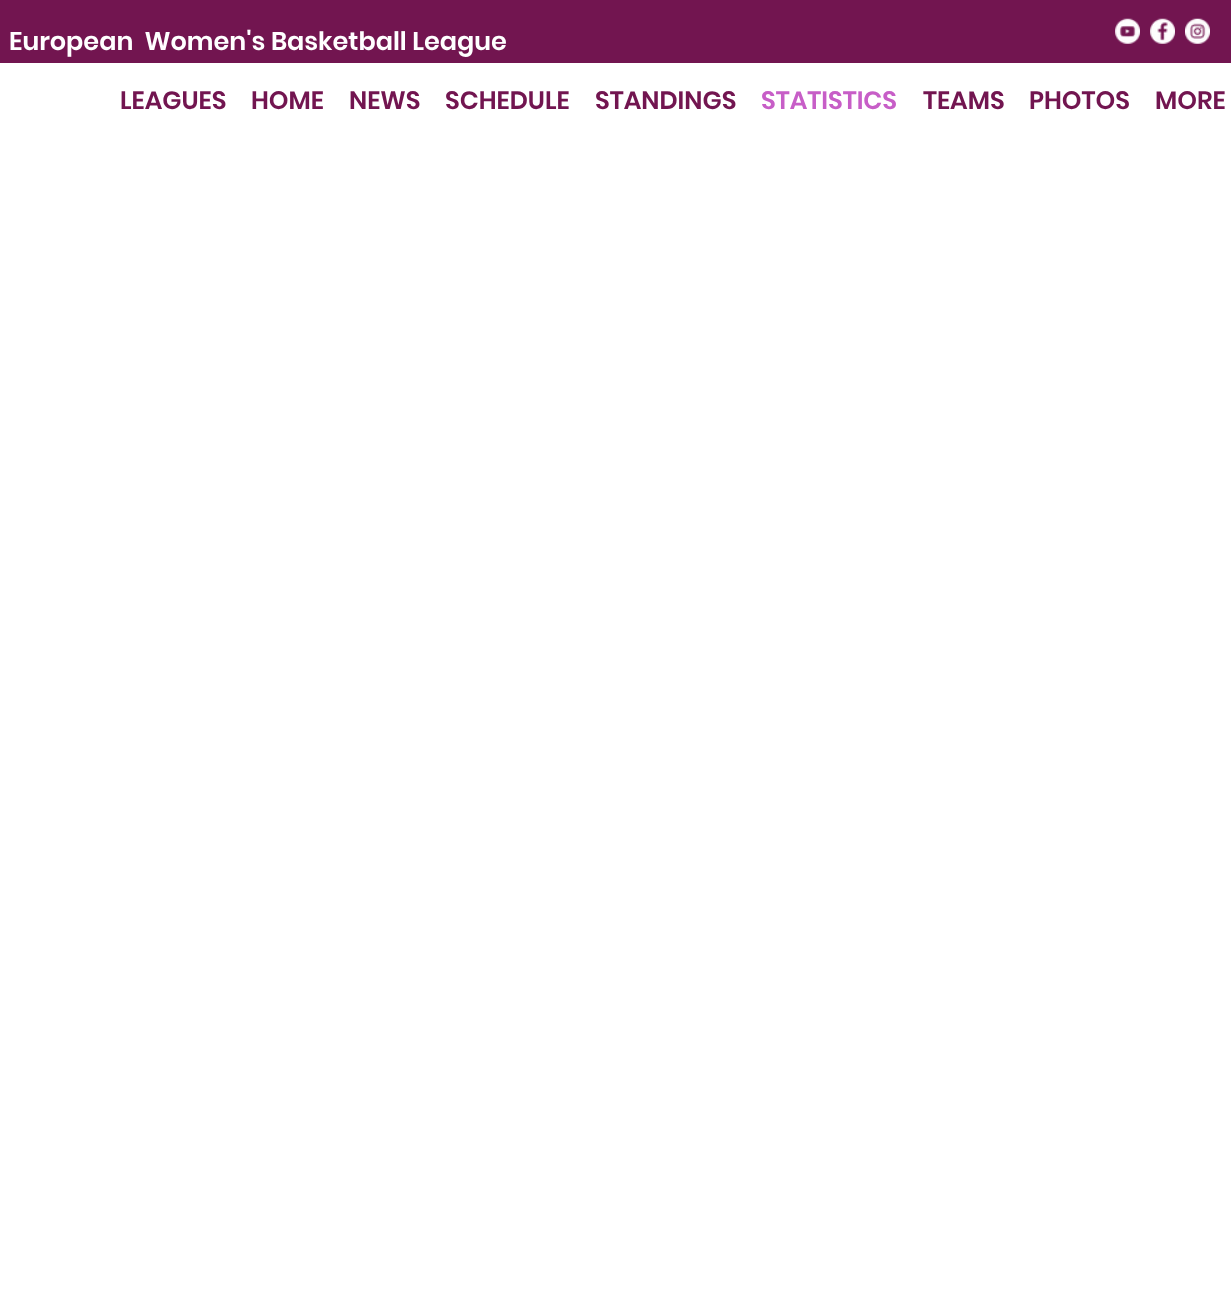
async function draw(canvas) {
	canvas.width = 1231;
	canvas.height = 1300;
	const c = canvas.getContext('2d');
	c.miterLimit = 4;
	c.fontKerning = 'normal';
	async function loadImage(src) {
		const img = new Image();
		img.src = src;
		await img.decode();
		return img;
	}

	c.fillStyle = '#fff';
	c.fillRect(0, 0, 1231, 1300);
	c.fillStyle = '#721550';
	c.fillRect(0, 0, 1231, 63);
	c.font = '600 25.5px Poppins';
	c.fillStyle = '#fff';
	c.fillText('European  Women\'s Basketball League', 9, 50);
	c.drawImage(await loadImage('img1.png'), 1115, 18, 25, 26);
	c.drawImage(await loadImage('img2.png'), 1150, 18, 25, 26);
	c.drawImage(await loadImage('img3.png'), 1185, 18, 25, 26);
	c.font = '600 25px Poppins';
	c.fillStyle = '#721550';
	for (const [text, x, y] of [
		['LEAGUES', 120, 109],
		['HOME', 251, 109],
		['NEWS', 349, 109],
		['SCHEDULE', 445, 109],
		['STANDINGS', 595, 109],
	]) {
		c.fillText(text, x, y);
	}
	c.fillStyle = '#c75ec7';
	c.fillText('STATISTICS', 761, 109);
	c.fillStyle = '#721550';
	for (const [text, x, y] of [
		['TEAMS', 923, 109],
		['PHOTOS', 1029, 109],
		['MORE', 1155, 109],
	]) {
		c.fillText(text, x, y);
	}
}

draw(document.querySelector('canvas'));
